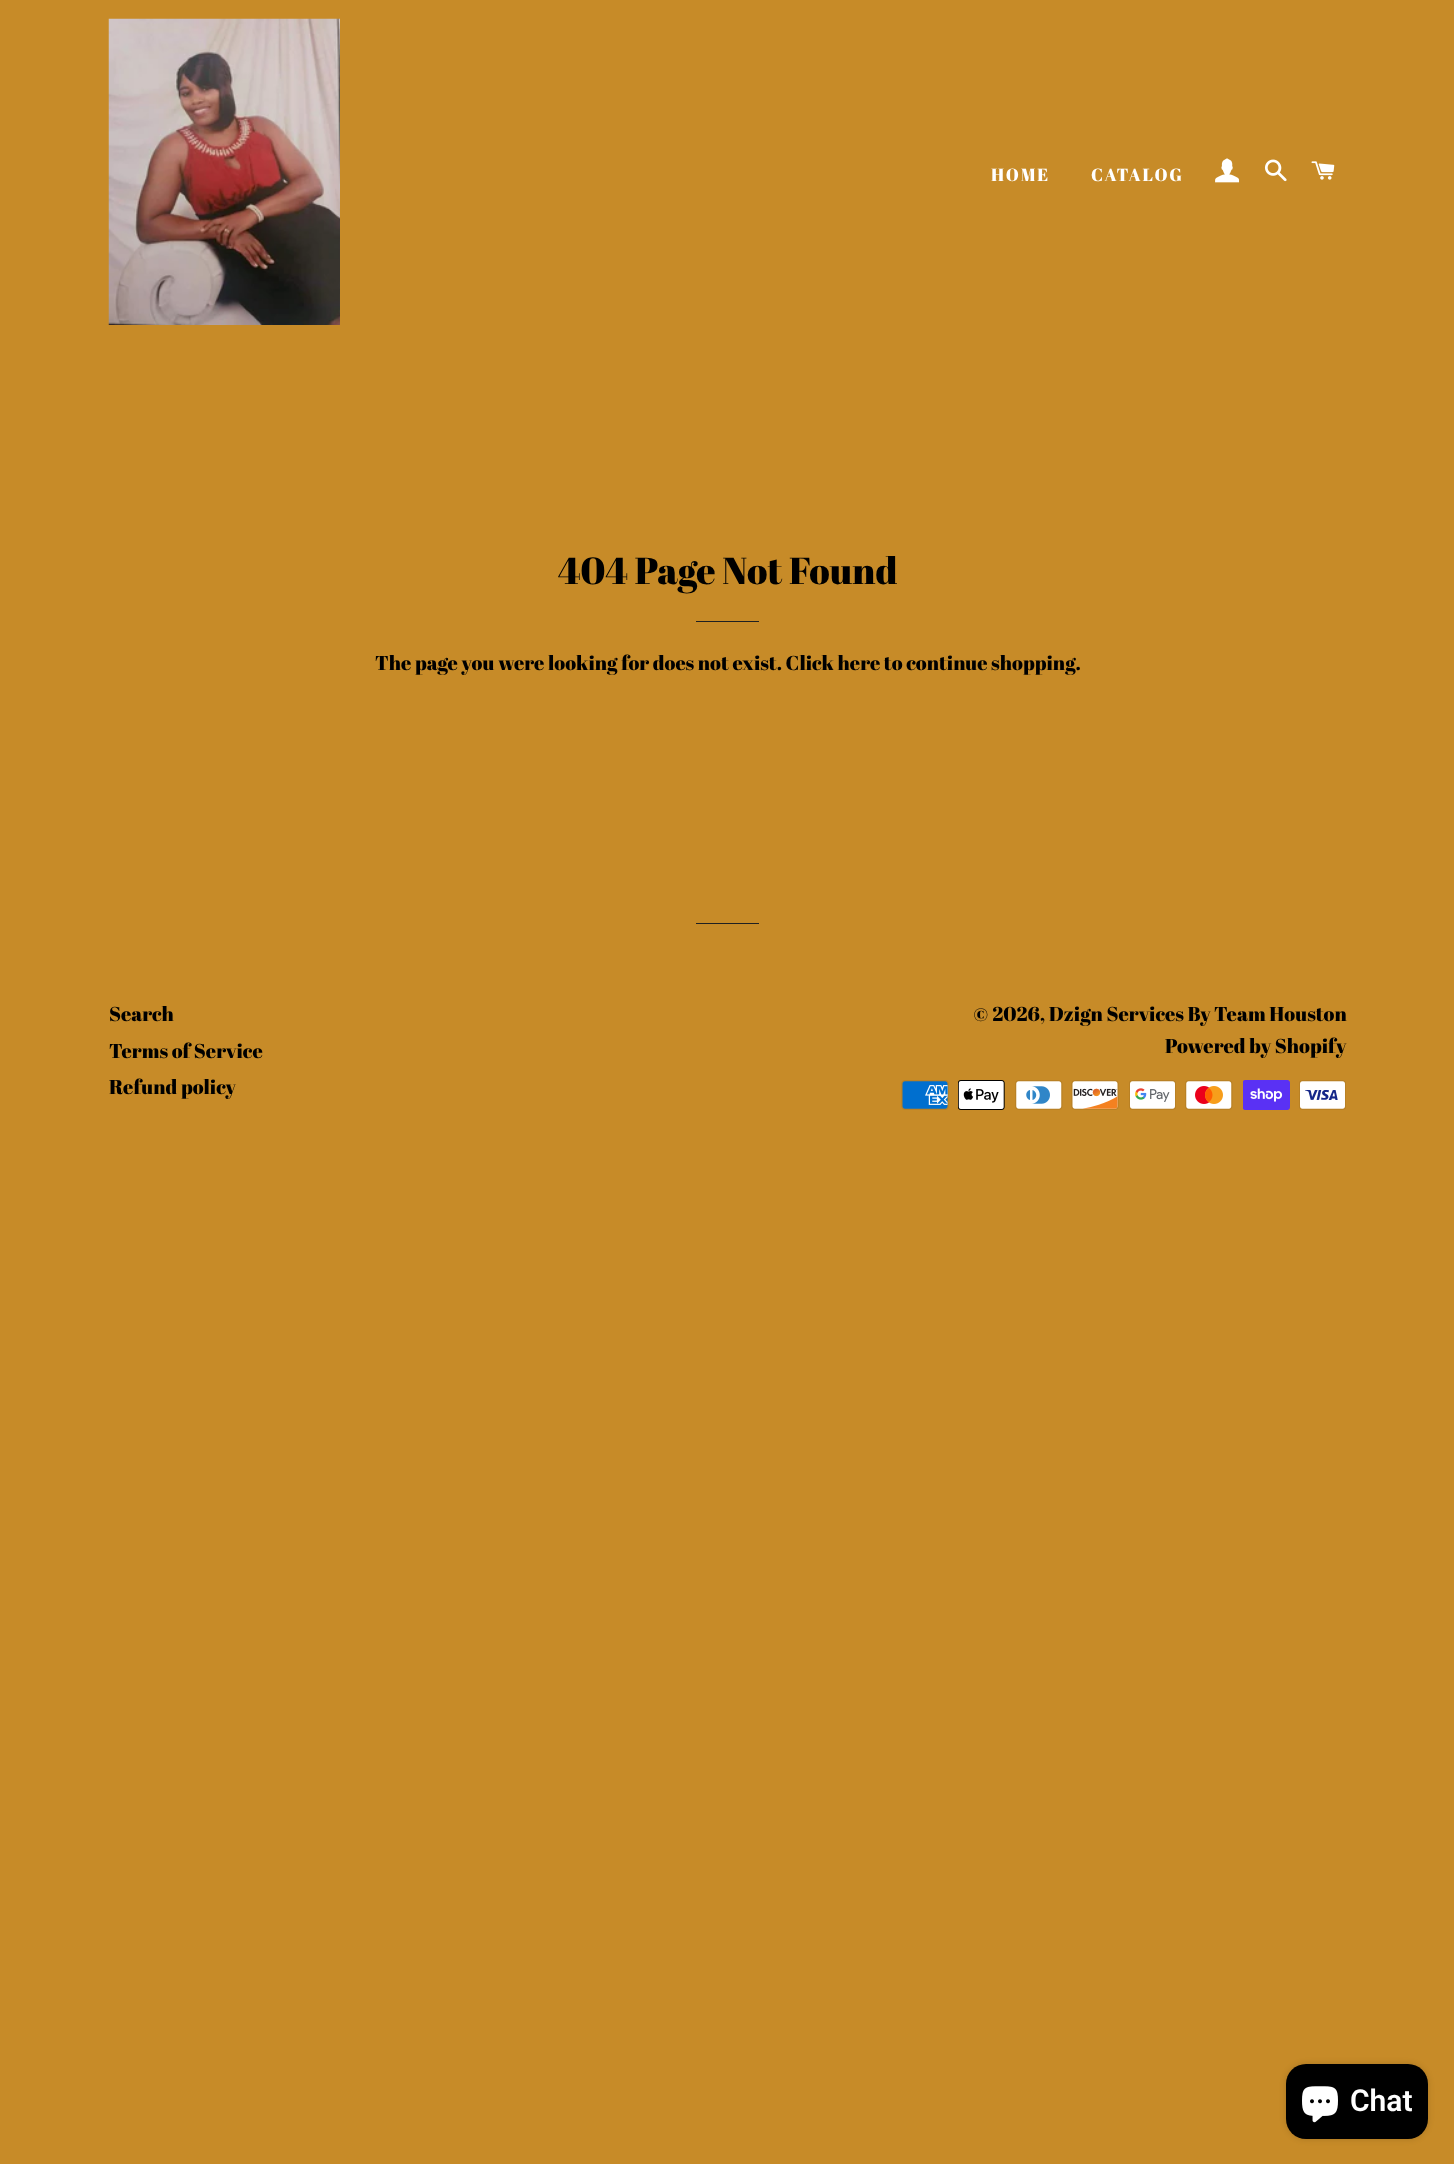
async function draw(canvas) {
	canvas.width = 1454;
	canvas.height = 2164;
	const c = canvas.getContext('2d');
	c.miterLimit = 4;
	c.fontKerning = 'normal';
	async function loadImage(src) {
		const img = new Image();
		img.src = src;
		await img.decode();
		return img;
	}

	c.fillStyle = '#c78b28';
	c.fillRect(0, 0, 1454, 2164);
	c.drawImage(await loadImage('img1.png'), 108, 18, 232, 307);
	c.letterSpacing = '1.75px';
	c.font = '17.5px Abril Fatface';
	c.fillStyle = '#fff';
	c.fillText('HOME', 991, 181);
	c.fillText('CATALOG', 1091, 181);
	c.drawImage(await loadImage('img2.png'), 1215, 158, 25, 25);
	c.drawImage(await loadImage('img3.png'), 1264, 159, 23, 23);
	c.drawImage(await loadImage('img4.png'), 1311, 161, 24, 19);
	c.letterSpacing = '0px';
	c.font = '37.5px Abril Fatface';
	c.fillStyle = '#000';
	c.fillText('404 Page Not Found', 558, 584);
	c.fillStyle = '#1f2021';
	c.fillRect(696, 621, 63, 1);
	c.font = '20px Abril Fatface';
	c.fillStyle = '#000';
	c.fillText('The page you were looking for does not exist. Click here to continue shopping.', 375, 670);
	c.fillStyle = '#1f2021';
	c.fillRect(696, 923, 63, 1);
	c.fillStyle = '#000';
	for (const [text, x, y] of [
		['Search', 109, 1021],
		['Terms of Service', 109, 1058],
		['Refund policy', 109, 1094],
		['© 2026, Dzign Services By Team Houston', 973, 1021],
		['Powered by Shopify', 1165, 1053],
	]) {
		c.fillText(text, x, y);
	}
	c.drawImage(await loadImage('img5.png'), 901, 1080, 48, 30);
	c.drawImage(await loadImage('img6.png'), 958, 1080, 47, 30);
	c.drawImage(await loadImage('img7.png'), 1015, 1080, 48, 30);
	c.drawImage(await loadImage('img8.png'), 1071, 1080, 48, 30);
	c.drawImage(await loadImage('img9.png'), 1129, 1080, 47, 30);
	c.drawImage(await loadImage('img10.png'), 1185, 1080, 48, 30);
	c.drawImage(await loadImage('img11.png'), 1243, 1080, 47, 30);
	c.drawImage(await loadImage('img12.png'), 1299, 1080, 47, 30);
	c.fillStyle = '#00000026';
	c.filter = 'blur(3px)';
	c.beginPath();
	c.roundRect(1286, 2064, 142, 75, 20);
	c.fill();
	c.filter = 'none';
	c.fillStyle = '#000';
	c.beginPath();
	c.roundRect(1286, 2064, 142, 75, 20);
	c.fill();
	c.drawImage(await loadImage('img13.png'), 1302, 2086, 36, 37);
	c.font = '600 30px Roboto';
	c.fillStyle = '#fff';
	c.fillText('Chat', 1350, 2111);
}

draw(document.querySelector('canvas'));
